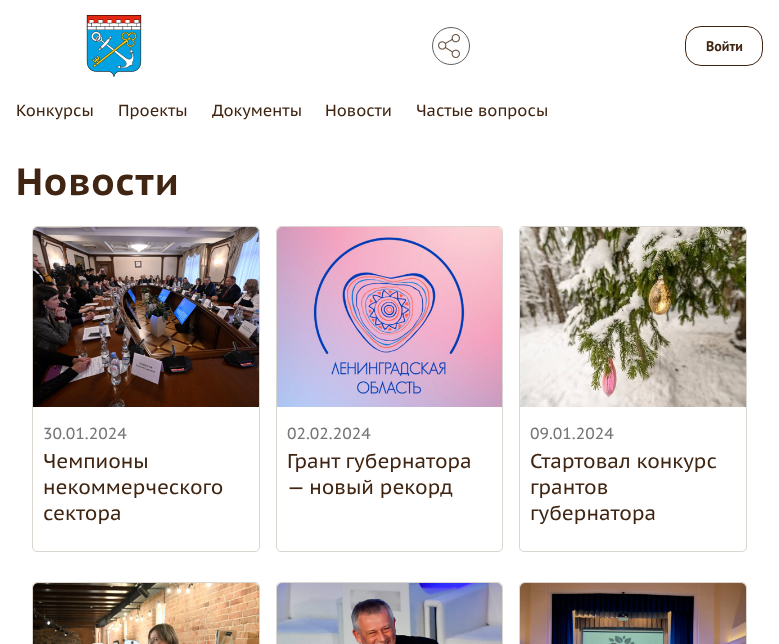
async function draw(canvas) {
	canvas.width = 779;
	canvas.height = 644;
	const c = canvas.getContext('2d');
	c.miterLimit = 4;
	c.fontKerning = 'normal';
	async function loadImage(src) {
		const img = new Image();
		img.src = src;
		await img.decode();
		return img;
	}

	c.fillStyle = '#fff';
	c.fillRect(0, 0, 779, 644);
	c.drawImage(await loadImage('img1.png'), 86, 15, 56, 62);
	c.beginPath();
	c.arc(451, 46, 18.5, 0, 2 * Math.PI);
	c.strokeStyle = '#616161';
	c.stroke();
	c.drawImage(await loadImage('img2.png'), 438, 34, 22, 24);
	c.beginPath();
	c.roundRect(685.5, 26.5, 77, 39, 15.5);
	c.strokeStyle = '#3f2512';
	c.stroke();
	c.font = 'bold 14px PT Sans';
	c.fillStyle = '#3f2512';
	c.fillText('Войти', 706, 51);
	c.font = '16px PT Sans Caption';
	for (const [text, x, y] of [
		['Конкурсы', 16, 116],
		['Проекты', 118, 116],
		['Документы', 212, 116],
		['Новости', 325, 116],
		['Частые вопросы', 416, 116],
	]) {
		c.fillText(text, x, y);
	}
	c.letterSpacing = '1px';
	c.font = 'bold 38px PT Sans Caption';
	c.fillText('Новости', 16, 195);
	c.beginPath();
	c.roundRect(32.5, 226.5, 227, 325, 4.5);
	c.strokeStyle = '#dad5ce';
	c.stroke();
	c.drawImage(await loadImage('img3.png'), 33, 227, 226, 180);
	c.letterSpacing = '0px';
	c.font = '16px PT Sans Caption';
	c.fillStyle = '#777';
	c.fillText('30.01.2024', 43, 439);
	c.font = '20px PT Sans Caption';
	c.fillStyle = '#3f2512';
	for (const [text, x, y] of [
		['Чемпионы', 43, 468],
		['некоммерческого', 43, 494],
		['сектора', 43, 520],
	]) {
		c.fillText(text, x, y);
	}
	c.beginPath();
	c.roundRect(276.5, 226.5, 226, 325, 4.5);
	c.stroke();
	c.drawImage(await loadImage('img4.png'), 277, 227, 225, 180);
	c.font = '16px PT Sans Caption';
	c.fillStyle = '#777';
	c.fillText('02.02.2024', 287, 439);
	c.font = '20px PT Sans Caption';
	c.fillStyle = '#3f2512';
	c.fillText('Грант губернатора', 287, 468);
	c.fillText('— новый рекорд', 287, 494);
	c.beginPath();
	c.roundRect(519.5, 226.5, 227, 325, 4.5);
	c.stroke();
	c.drawImage(await loadImage('img5.png'), 520, 227, 226, 180);
	c.font = '16px PT Sans Caption';
	c.fillStyle = '#777';
	c.fillText('09.01.2024', 530, 439);
	c.font = '20px PT Sans Caption';
	c.fillStyle = '#3f2512';
	for (const [text, x, y] of [
		['Стартовал конкурс', 530, 468],
		['грантов', 530, 494],
		['губернатора', 530, 520],
	]) {
		c.fillText(text, x, y);
	}
	c.beginPath();
	c.roundRect(32.5, 582.5, 227, 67, 4.5);
	c.stroke();
	c.drawImage(await loadImage('img6.png'), 33, 583, 226, 61);
	c.beginPath();
	c.roundRect(276.5, 582.5, 226, 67, 4.5);
	c.stroke();
	c.drawImage(await loadImage('img7.png'), 277, 583, 225, 61);
	c.beginPath();
	c.roundRect(519.5, 582.5, 227, 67, 4.5);
	c.stroke();
	c.drawImage(await loadImage('img8.png'), 520, 583, 226, 61);
}

draw(document.querySelector('canvas'));
